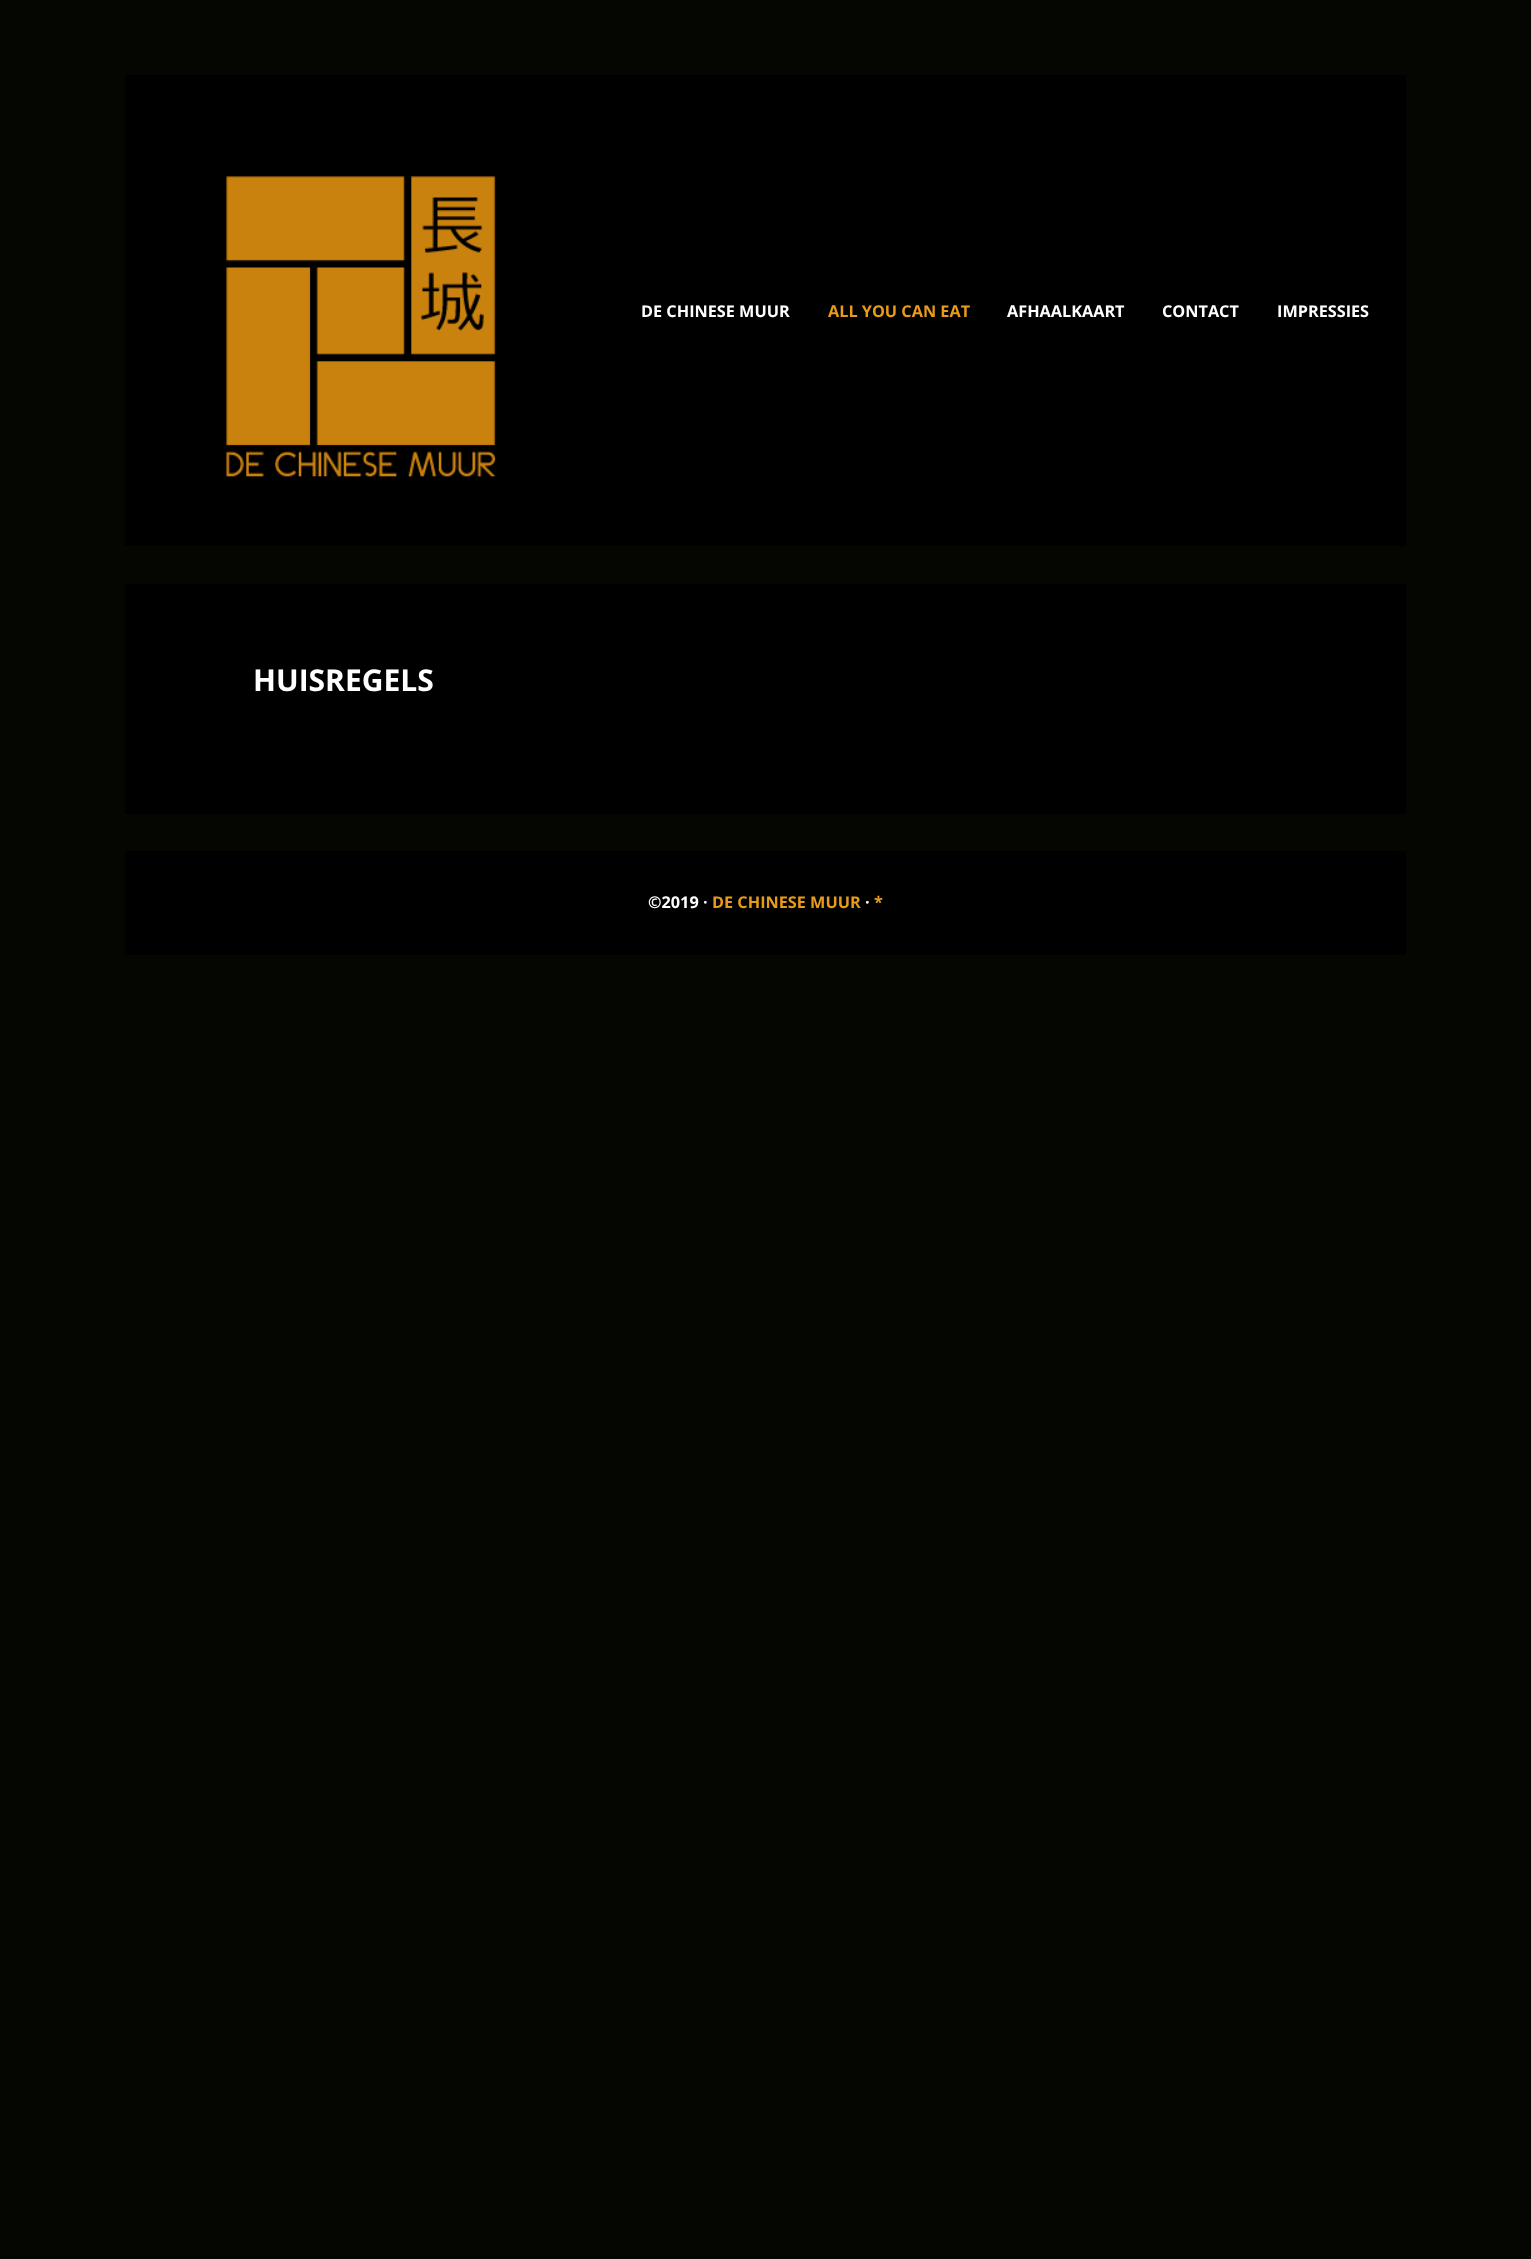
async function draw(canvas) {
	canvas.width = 1531;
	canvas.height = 2259;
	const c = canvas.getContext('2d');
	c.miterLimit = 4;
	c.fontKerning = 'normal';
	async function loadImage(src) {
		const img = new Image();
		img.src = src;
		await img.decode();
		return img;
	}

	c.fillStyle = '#050601';
	c.fillRect(0, 0, 1531, 2259);
	c.fillStyle = '#000';
	c.fillRect(125, 75, 1281, 471);
	c.drawImage(await loadImage('img1.png'), 226, 176, 270, 301);
	c.font = 'bold 16.25px Open Sans';
	c.fillStyle = '#fff';
	c.fillText('DE CHINESE MUUR', 641, 317);
	c.fillStyle = '#e89b18';
	c.fillText('ALL YOU CAN EAT', 828, 317);
	c.fillStyle = '#fff';
	for (const [text, x, y] of [
		['AFHAALKAART', 1007, 317],
		['CONTACT', 1162, 317],
		['IMPRESSIES', 1277, 317],
	]) {
		c.fillText(text, x, y);
	}
	c.fillStyle = '#000';
	c.fillRect(125, 584, 1281, 230);
	c.font = 'bold 30px Open Sans';
	c.fillStyle = '#fff';
	c.fillText('HUISREGELS', 253, 691);
	c.fillStyle = '#000';
	c.fillRect(125, 851, 1281, 104);
	c.font = 'bold 16.25px Open Sans';
	c.fillStyle = '#fff';
	c.fillText('©2019 ·', 648, 908);
	c.fillStyle = '#e89b18';
	c.fillText('DE CHINESE MUUR', 712, 908);
	c.fillStyle = '#fff';
	c.fillText('·', 865, 908);
	c.fillStyle = '#e89b18';
	c.fillText('*', 874, 908);
}

draw(document.querySelector('canvas'));
